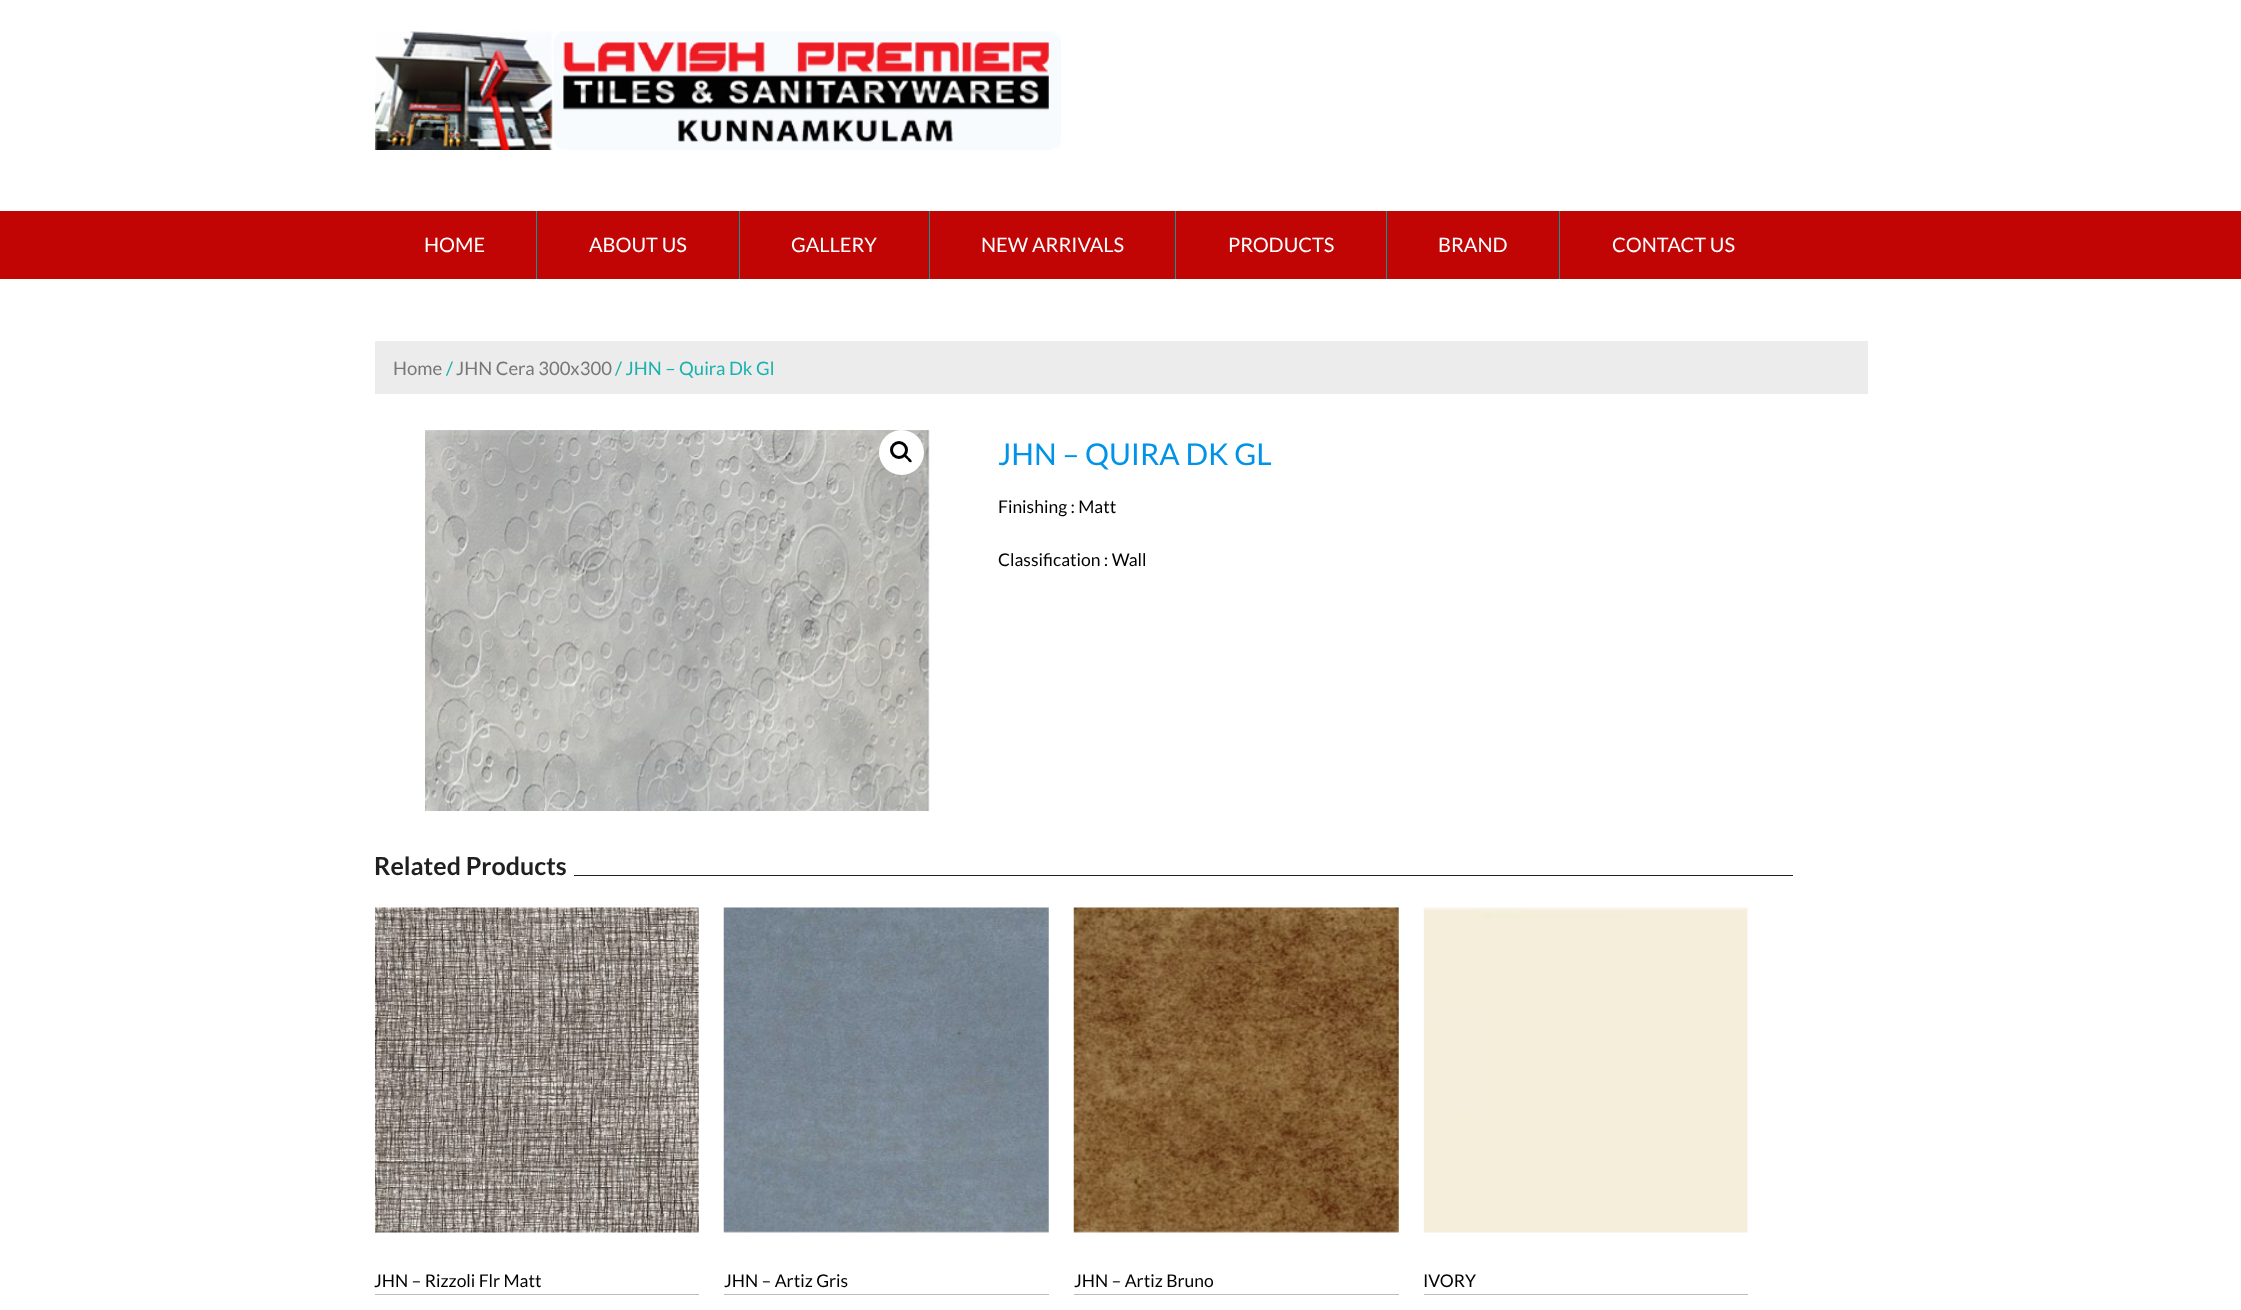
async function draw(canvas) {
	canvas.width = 2241;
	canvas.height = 1310;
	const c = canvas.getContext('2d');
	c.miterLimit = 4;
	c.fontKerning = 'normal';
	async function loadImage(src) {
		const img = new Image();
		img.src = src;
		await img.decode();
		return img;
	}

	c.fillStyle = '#fff';
	c.fillRect(0, 0, 2241, 1310);
	c.drawImage(await loadImage('img1.png'), 375, 31, 686, 119);
	c.fillStyle = '#c10404';
	c.fillRect(0, 211, 2241, 68);
	c.font = '20px Lato';
	c.fillStyle = '#fff';
	c.fillText('HOME', 424, 252);
	c.fillStyle = '#099896';
	c.fillRect(536, 211, 1, 68);
	c.fillStyle = '#fff';
	c.fillText('ABOUT US', 589, 252);
	c.fillStyle = '#099896';
	c.fillRect(739, 211, 1, 68);
	c.fillStyle = '#fff';
	c.fillText('GALLERY', 791, 252);
	c.fillStyle = '#099896';
	c.fillRect(929, 211, 1, 68);
	c.fillStyle = '#fff';
	c.fillText('NEW ARRIVALS', 981, 252);
	c.fillStyle = '#099896';
	c.fillRect(1175, 211, 1, 68);
	c.fillStyle = '#fff';
	c.fillText('PRODUCTS', 1228, 252);
	c.fillStyle = '#099896';
	c.fillRect(1386, 211, 1, 68);
	c.fillStyle = '#fff';
	c.fillText('BRAND', 1438, 252);
	c.fillStyle = '#099896';
	c.fillRect(1559, 211, 1, 68);
	c.fillStyle = '#fff';
	c.fillText('CONTACT US', 1612, 252);
	c.fillStyle = '#ececec';
	c.fillRect(375, 341, 1493, 53);
	c.font = '18.5px Lato';
	c.fillStyle = '#777';
	c.fillText('Home', 393, 375);
	c.fillStyle = '#1ab1ae';
	c.fillText('/', 446, 375);
	c.fillStyle = '#777';
	c.fillText('JHN Cera 300x300', 456, 375);
	c.fillStyle = '#1ab1ae';
	c.fillText('/ JHN – Quira Dk Gl', 615, 375);
	c.drawImage(await loadImage('img2.png'), 425, 430, 505, 381);
	c.fillStyle = '#fff';
	c.beginPath();
	c.arc(901.5, 452.5, 22.5, 0, 2 * Math.PI);
	c.fill();
	c.beginPath();
	c.arc(899, 450, 7.5, 0, 2 * Math.PI);
	c.strokeStyle = '#000';
	c.lineWidth = 3;
	c.stroke();
	c.fillStyle = '#000';
	c.beginPath();
	c.moveTo(904, 455);
	c.bezierCurveTo(905.5, 453.5, 908, 456.5, 908.5, 457.5);
	c.bezierCurveTo(909.5, 458, 912.5, 460.5, 911.5, 462);
	c.bezierCurveTo(910, 463.5, 907.5, 460, 907, 459);
	c.bezierCurveTo(906, 458.5, 903, 456, 904, 455);
	c.closePath();
	c.fill();
	c.font = '30px Lato';
	c.fillStyle = '#0093e8';
	c.fillText('JHN – QUIRA DK GL', 998, 465);
	c.font = '17.5px Lato';
	c.fillStyle = '#000';
	c.fillText('Finishing : Matt', 998, 513);
	c.fillText('Classification : Wall', 998, 566);
	c.font = 'bold 25px Lato';
	c.fillStyle = '#1f1f1f';
	c.fillText('Related Products', 374, 875);
	c.fillRect(574, 875, 1219, 1);
	c.drawImage(await loadImage('img3.png'), 375, 907, 324, 326);
	c.fillStyle = '#bbb';
	c.fillRect(375, 1294, 324, 1);
	c.font = '17.5px Lato';
	c.fillStyle = '#000';
	c.fillText('JHN – Rizzoli Flr Matt', 374, 1287);
	c.drawImage(await loadImage('img4.png'), 723, 907, 326, 326);
	c.fillStyle = '#bbb';
	c.fillRect(724, 1294, 325, 1);
	c.fillStyle = '#000';
	c.fillText('JHN – Artiz Gris', 724, 1287);
	c.drawImage(await loadImage('img5.png'), 1073, 907, 326, 326);
	c.fillStyle = '#bbb';
	c.fillRect(1074, 1294, 325, 1);
	c.fillStyle = '#000';
	c.fillText('JHN – Artiz Bruno', 1074, 1287);
	c.drawImage(await loadImage('img6.png'), 1423, 907, 325, 326);
	c.fillStyle = '#bbb';
	c.fillRect(1424, 1294, 324, 1);
	c.fillStyle = '#000';
	c.fillText('IVORY', 1423, 1287);
}

draw(document.querySelector('canvas'));
